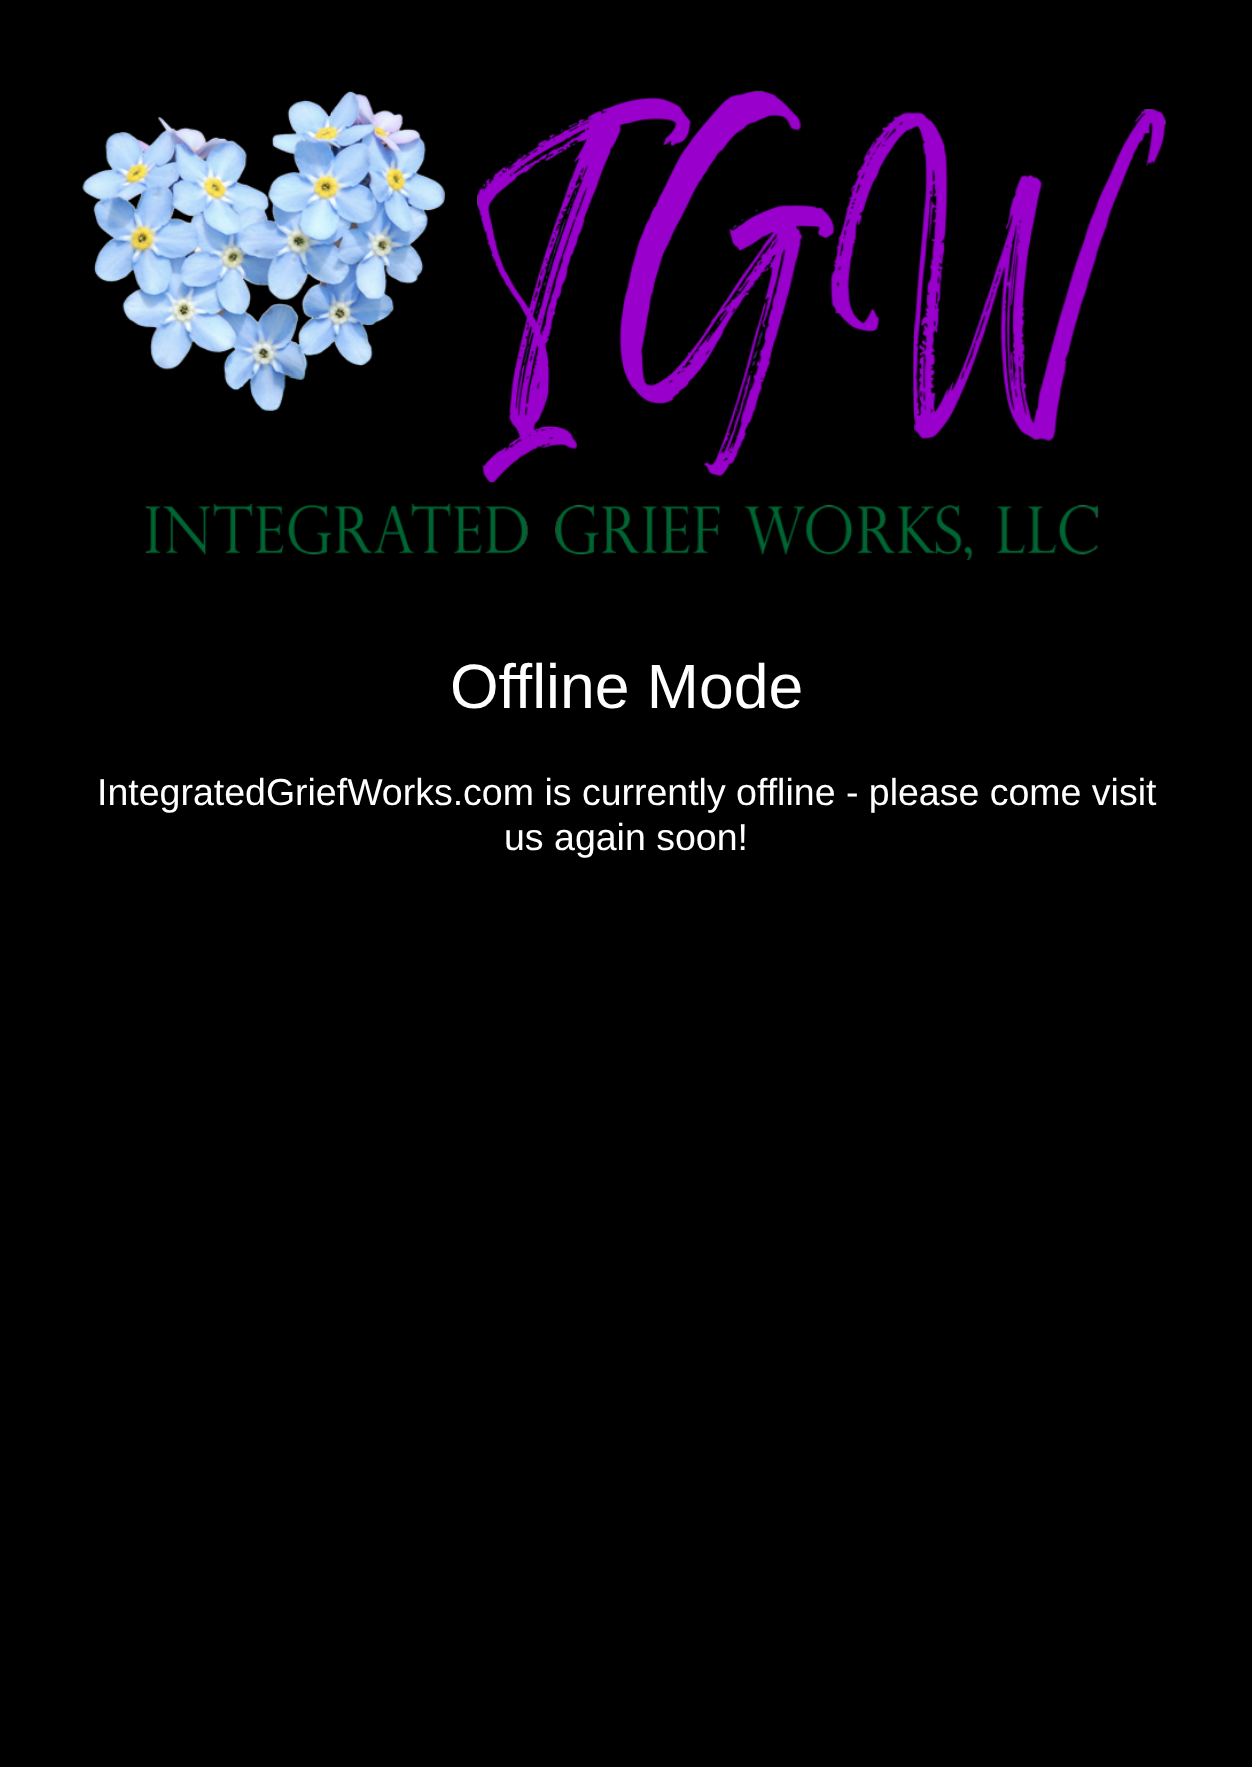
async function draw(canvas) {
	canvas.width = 1252;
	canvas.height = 1767;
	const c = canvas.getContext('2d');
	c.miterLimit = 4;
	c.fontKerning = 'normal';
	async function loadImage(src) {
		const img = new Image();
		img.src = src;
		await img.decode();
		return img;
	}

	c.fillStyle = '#000';
	c.fillRect(0, 0, 1252, 1767);
	c.drawImage(await loadImage('img1.png'), 82, 90, 1085, 471);
	c.font = '62.5px Liberation Sans';
	c.fillStyle = '#fff';
	c.fillText('Offline Mode', 450, 708);
	c.font = '37.5px Liberation Sans';
	c.fillText('IntegratedGriefWorks.com is currently offline - please come visit', 97, 805);
	c.fillText('us again soon!', 504, 850);
}

draw(document.querySelector('canvas'));
